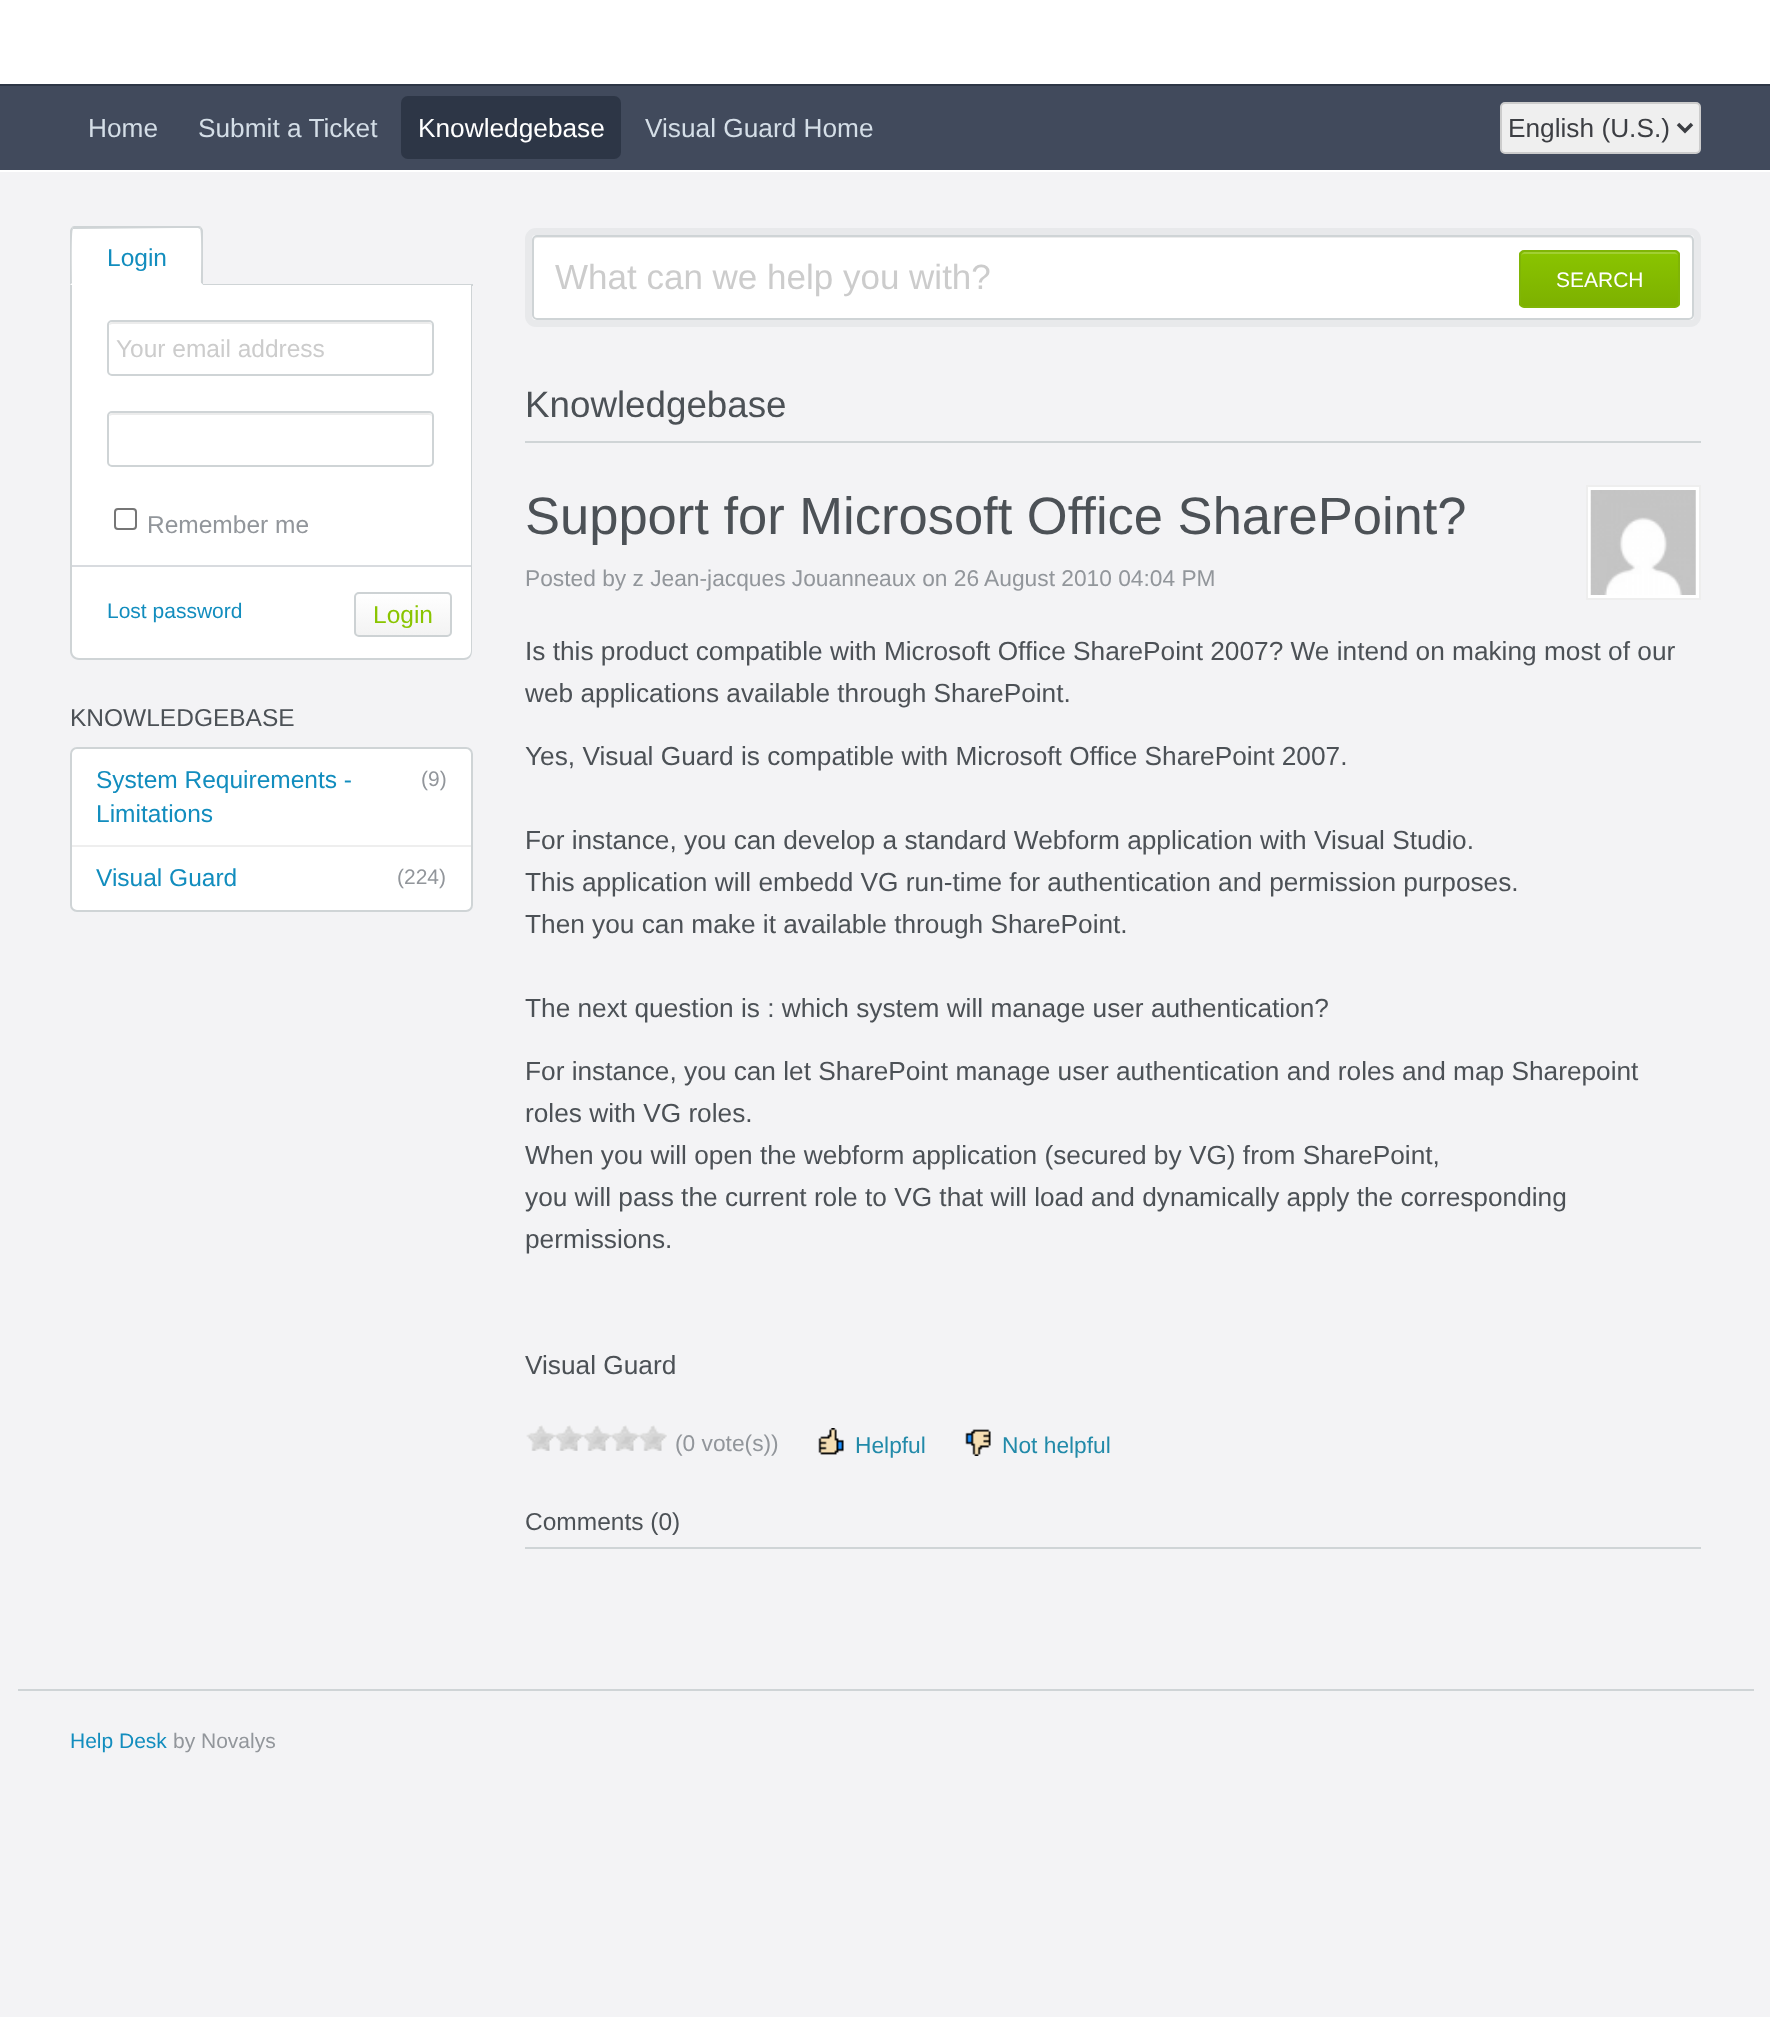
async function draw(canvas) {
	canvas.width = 1770;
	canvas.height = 2017;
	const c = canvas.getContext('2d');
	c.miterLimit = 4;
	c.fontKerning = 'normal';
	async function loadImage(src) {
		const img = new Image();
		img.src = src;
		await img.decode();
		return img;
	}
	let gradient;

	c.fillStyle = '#f3f3f5';
	c.fillRect(0, 0, 1770, 2017);
	for (const [x, y, w, h, color] of [
		[0, 0, 1770, 84, '#fff'],
		[0, 86, 1770, 84, '#414a5c'],
		[0, 84, 1770, 2, '#2d3646'],
		[0, 170, 1770, 2, '#fff'],
	]) {
		c.fillStyle = color;
		c.fillRect(x, y, w, h);
	}
	c.font = '26.25px Liberation Sans';
	c.fillStyle = '#d4dee7';
	c.fillText('Home', 88, 137);
	c.fillText('Submit a Ticket', 198, 137);
	c.fillStyle = '#2d3646';
	c.beginPath();
	c.roundRect(401, 96, 220, 63, 7);
	c.fill();
	c.fillStyle = '#fff';
	c.fillText('Knowledgebase', 418, 137);
	c.fillStyle = '#d4dee7';
	c.fillText('Visual Guard Home', 645, 137);
	c.fillStyle = '#efefef';
	c.beginPath();
	c.roundRect(1501, 103, 199, 50, 4);
	c.fill();
	c.strokeStyle = '#ccc';
	c.lineWidth = 2;
	c.stroke();
	c.beginPath();
	c.moveTo(1678, 124);
	c.lineTo(1685, 131);
	c.lineTo(1692, 124);
	c.strokeStyle = '#3c3e43';
	c.lineWidth = 3.5;
	c.stroke();
	c.fillStyle = '#3c3e43';
	c.fillText('English (U.S.)', 1508, 137);
	c.fillStyle = '#cfd4d6';
	c.fillRect(203, 284, 270, 2);
	c.fillStyle = '#fff';
	c.beginPath();
	c.roundRect(70, 226, 133, 59, [5, 5, 0, 0]);
	c.fill();
	c.fillStyle = '#cfd4d6';
	c.beginPath();
	c.moveTo(75, 226);
	c.bezierCurveTo(74, 226, 72, 226, 72, 227);
	c.lineTo(73, 229);
	c.lineTo(178, 228);
	c.lineTo(198, 228);
	c.lineTo(200, 229);
	c.lineTo(201, 227);
	c.bezierCurveTo(201, 226, 199, 226, 198, 226);
	c.closePath();
	c.fill();
	c.beginPath();
	c.moveTo(201, 227);
	c.bezierCurveTo(202, 228, 203, 229, 203, 231);
	c.lineTo(203, 285);
	c.lineTo(201, 283);
	c.bezierCurveTo(201, 277, 202, 230, 200, 229);
	c.closePath();
	c.fill();
	c.fillStyle = '#fff';
	c.beginPath();
	c.moveTo(203, 285);
	c.lineTo(70, 285);
	c.lineTo(72, 283);
	c.lineTo(72, 284);
	c.lineTo(201, 284);
	c.lineTo(201, 283);
	c.closePath();
	c.fill();
	c.fillStyle = '#cfd4d6';
	c.beginPath();
	c.moveTo(70, 231);
	c.lineTo(70, 285);
	c.lineTo(72, 283);
	c.bezierCurveTo(72, 277, 71, 230, 73, 229);
	c.lineTo(72, 227);
	c.bezierCurveTo(71, 228, 70, 229, 70, 231);
	c.closePath();
	c.fill();
	c.font = '24.5px Liberation Sans';
	c.fillStyle = '#128dbe';
	c.fillText('Login', 107, 266);
	c.fillStyle = '#fff';
	c.beginPath();
	c.roundRect(72, 285, 399, 373, [0, 0, 7, 7]);
	c.fill();
	c.fillStyle = '#cfd4d6';
	c.beginPath();
	c.moveTo(70, 285);
	c.lineTo(472, 285);
	c.lineTo(472, 651);
	c.bezierCurveTo(472, 656, 469, 660, 464, 660);
	c.lineTo(79, 660);
	c.bezierCurveTo(74, 660, 70, 656, 70, 651);
	c.closePath();
	c.moveTo(72, 285);
	c.lineTo(471, 285);
	c.lineTo(471, 651);
	c.bezierCurveTo(471, 655, 468, 658, 464, 658);
	c.lineTo(79, 658);
	c.bezierCurveTo(75, 658, 72, 655, 72, 651);
	c.closePath();
	c.fill('evenodd');
	c.fillStyle = '#ececec';
	c.beginPath();
	c.moveTo(112, 324);
	c.lineTo(429, 324);
	c.bezierCurveTo(431, 324, 432, 325, 432, 327);
	c.lineTo(432, 326);
	c.bezierCurveTo(432, 324, 430, 322, 428, 322);
	c.lineTo(113, 322);
	c.bezierCurveTo(111, 322, 110, 323, 109, 325);
	c.closePath();
	c.fill();
	c.beginPath();
	c.roundRect(108, 321, 325, 54, 4);
	c.strokeStyle = '#cfd4d6';
	c.lineWidth = 2;
	c.stroke();
	c.fillStyle = '#ccc';
	c.fillText('Your email address', 116, 357);
	c.fillStyle = '#ececec';
	c.beginPath();
	c.moveTo(112, 415);
	c.lineTo(429, 415);
	c.bezierCurveTo(431, 415, 432, 416, 432, 418);
	c.lineTo(432, 417);
	c.bezierCurveTo(432, 415, 430, 413, 428, 413);
	c.lineTo(113, 413);
	c.bezierCurveTo(111, 413, 110, 414, 109, 416);
	c.closePath();
	c.fill();
	c.beginPath();
	c.roundRect(108, 412, 325, 54, 4);
	c.stroke();
	c.beginPath();
	c.roundRect(115, 509, 21, 20, 3);
	c.strokeStyle = '#767676';
	c.stroke();
	c.fillStyle = '#92969b';
	c.fillText('Remember me', 147, 533);
	c.fillStyle = '#d8dbdf';
	c.fillRect(72, 565, 399, 2);
	c.font = '21px Liberation Sans';
	c.fillStyle = '#128dbe';
	c.fillText('Lost password', 107, 618);
	c.save();
	c.beginPath();
	c.roundRect(354, 592, 98, 45, 5);
	c.clip();
	gradient = c.createLinearGradient(355, 593, 355, 635);
	gradient.addColorStop(0, '#fff');
	gradient.addColorStop(1, '#f3f3f3');
	c.fillStyle = gradient;
	c.fillRect(354, 593, 98, 42);
	c.restore();
	c.beginPath();
	c.roundRect(355, 593, 96, 43, 4);
	c.strokeStyle = '#cdd2d4';
	c.stroke();
	c.font = '24.5px Liberation Sans';
	c.fillStyle = '#8ac500';
	c.fillText('Login', 373, 623);
	c.fillStyle = '#4c5156';
	c.fillText('KNOWLEDGEBASE', 70, 726);
	c.fillStyle = '#fff';
	c.beginPath();
	c.roundRect(71, 748, 401, 163, 6);
	c.fill();
	c.strokeStyle = '#cfd4d6';
	c.stroke();
	c.fillStyle = '#eee';
	c.fillRect(72, 845, 399, 2);
	c.fillStyle = '#128dbe';
	c.fillText('System Requirements -', 96, 788);
	c.font = '21px Liberation Sans';
	c.fillStyle = '#92969b';
	c.fillText('(9)', 421, 786);
	c.font = '24.5px Liberation Sans';
	c.fillStyle = '#128dbe';
	c.fillText('Limitations', 96, 822);
	c.fillText('Visual Guard', 96, 886);
	c.font = '21px Liberation Sans';
	c.fillStyle = '#92969b';
	c.fillText('(224)', 397, 884);
	c.fillStyle = '#fff';
	c.beginPath();
	c.roundRect(528.5, 231.5, 1169, 92, 7.5);
	c.fill();
	c.strokeStyle = '#e8e9eb';
	c.lineWidth = 7;
	c.stroke();
	c.fillStyle = '#ececec';
	c.beginPath();
	c.moveTo(537, 238);
	c.lineTo(1689, 238);
	c.bezierCurveTo(1691, 238, 1692, 240, 1692, 242);
	c.lineTo(1692, 240);
	c.bezierCurveTo(1692, 238, 1690, 236, 1688, 236);
	c.lineTo(538, 236);
	c.bezierCurveTo(536, 236, 534, 238, 534, 240);
	c.lineTo(534, 242);
	c.bezierCurveTo(534, 240, 535, 238, 537, 238);
	c.closePath();
	c.fill();
	c.beginPath();
	c.roundRect(533, 236, 1160, 83, 4);
	c.strokeStyle = '#cfd4d6';
	c.lineWidth = 2;
	c.stroke();
	c.font = '35px Liberation Sans';
	c.fillStyle = '#ccc';
	c.fillText('What can we help you with?', 555, 289);
	c.save();
	c.beginPath();
	c.roundRect(1519, 250, 161, 58, 5);
	c.clip();
	gradient = c.createLinearGradient(1521, 252, 1521, 306);
	gradient.addColorStop(0, '#8ac400');
	gradient.addColorStop(1, '#7db100');
	c.fillStyle = gradient;
	c.fillRect(1519, 252, 161, 54);
	c.restore();
	c.fillStyle = '#a1cf33';
	c.beginPath();
	c.moveTo(1524, 254);
	c.lineTo(1675, 254);
	c.bezierCurveTo(1677, 254, 1678, 255, 1678, 257);
	c.bezierCurveTo(1678, 255, 1677, 253, 1675, 252);
	c.lineTo(1524, 252);
	c.bezierCurveTo(1522, 253, 1521, 255, 1521, 257);
	c.bezierCurveTo(1521, 255, 1522, 254, 1524, 254);
	c.closePath();
	c.fill();
	c.beginPath();
	c.roundRect(1520, 251, 159, 56, 4);
	c.strokeStyle = '#80b506';
	c.stroke();
	c.font = '21px Liberation Sans';
	c.fillStyle = '#fff';
	c.fillText('SEARCH', 1556, 287);
	c.fillStyle = '#cfd4d6';
	c.fillRect(525, 441, 1176, 2);
	c.font = '36.75px Liberation Sans';
	c.fillStyle = '#4c5156';
	c.fillText('Knowledgebase', 525, 417);
	c.font = '52.5px Liberation Sans';
	c.fillText('Support for Microsoft Office SharePoint?', 525, 534);
	c.fillStyle = '#fff';
	c.beginPath();
	c.rect(1587, 486, 113, 113);
	c.fill();
	c.strokeStyle = '#eee';
	c.stroke();
	c.drawImage(await loadImage('img1.png'), 1590, 490, 106, 105);
	c.font = '22.75px Liberation Sans';
	c.fillStyle = '#92969b';
	c.fillText('Posted by z Jean-jacques Jouanneaux on 26 August 2010 04:04 PM', 525, 586);
	c.font = '26.25px Liberation Sans';
	c.fillStyle = '#4c5156';
	for (const [text, x, y] of [
		['Is this product compatible with Microsoft Office SharePoint 2007? We intend on making most of our', 525, 660],
		['web applications available through SharePoint.', 525, 702],
		['Yes, Visual Guard is compatible with Microsoft Office SharePoint 2007.', 525, 765],
		['For instance, you can develop a standard Webform application with Visual Studio.', 525, 849],
		['This application will embedd VG run-time for authentication and permission purposes.', 525, 891],
		['Then you can make it available through SharePoint.', 525, 933],
		['The next question is : which system will manage user authentication?', 525, 1017],
		['For instance, you can let SharePoint manage user authentication and roles and map Sharepoint', 525, 1080],
		['roles with VG roles.', 525, 1122],
		['When you will open the webform application (secured by VG) from SharePoint,', 525, 1164],
		['you will pass the current role to VG that will load and dynamically apply the corresponding', 525, 1206],
		['permissions.', 525, 1248],
		['Visual Guard', 525, 1374],
	]) {
		c.fillText(text, x, y);
	}
	c.drawImage(await loadImage('img2.png'), 526, 1425, 141, 26);
	c.font = '22.75px Liberation Sans';
	c.fillStyle = '#92969b';
	c.fillText('(0 vote(s))', 675, 1451);
	c.drawImage(await loadImage('img3.png'), 818, 1428, 26, 27);
	c.fillStyle = '#228aa9';
	c.fillText('Helpful', 855, 1453);
	c.drawImage(await loadImage('img4.png'), 965, 1429, 26, 27);
	c.fillText('Not helpful', 1002, 1453);
	c.fillStyle = '#cfd4d6';
	c.fillRect(525, 1547, 1176, 2);
	c.font = '24.5px Liberation Sans';
	c.fillStyle = '#4c5156';
	c.fillText('Comments (0)', 525, 1530);
	c.fillStyle = '#cfd4d6';
	c.fillRect(18, 1689, 1736, 2);
	c.font = '21px Liberation Sans';
	c.fillStyle = '#128dbe';
	c.fillText('Help Desk', 70, 1748);
	c.fillStyle = '#92969b';
	c.fillText('by Novalys', 173, 1748);
}

draw(document.querySelector('canvas'));
